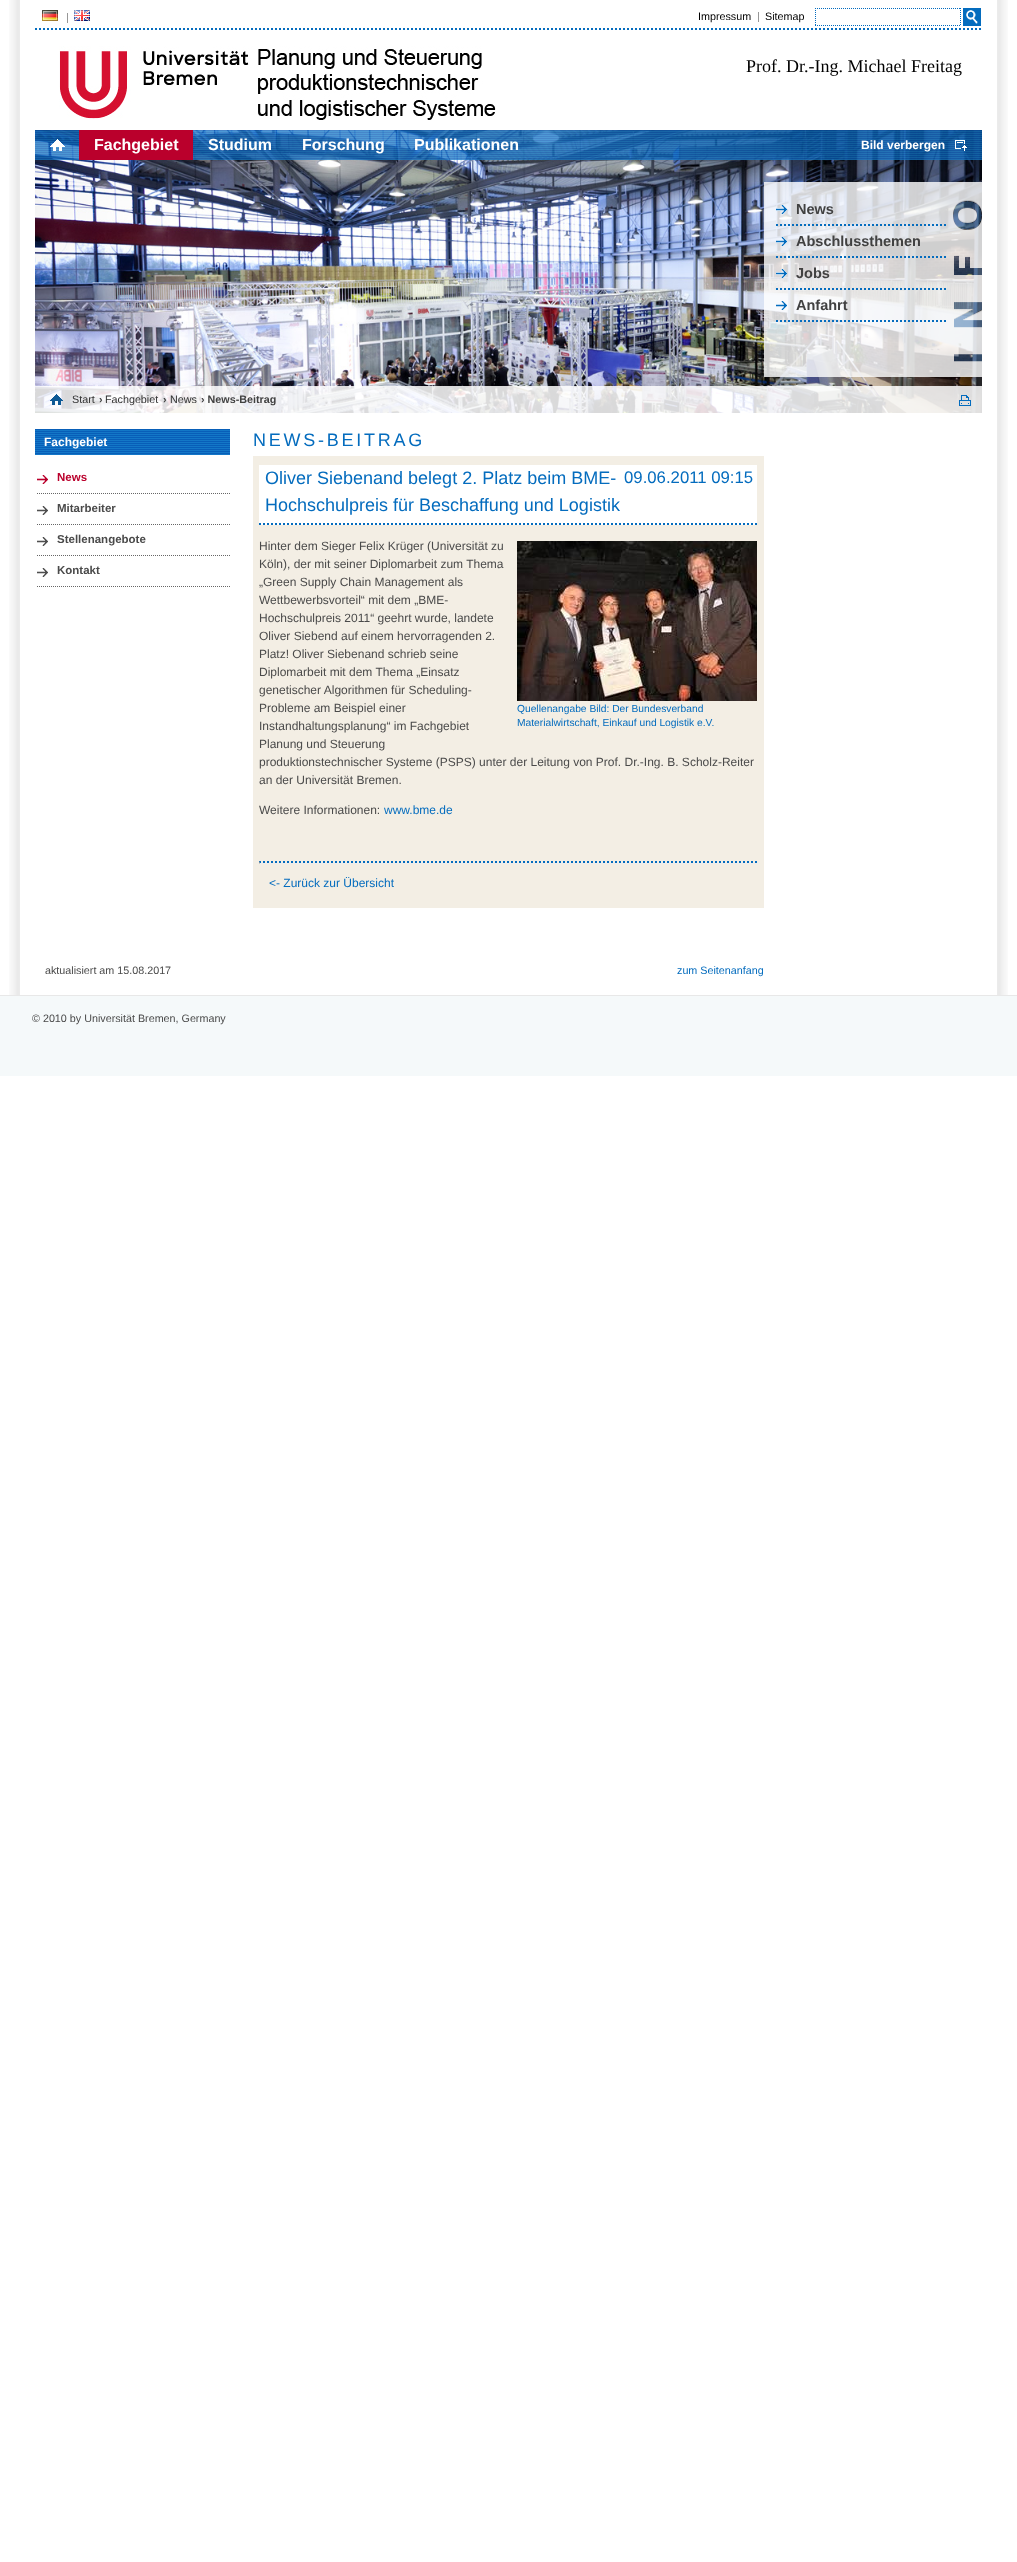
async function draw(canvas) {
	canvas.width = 1017;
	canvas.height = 2562;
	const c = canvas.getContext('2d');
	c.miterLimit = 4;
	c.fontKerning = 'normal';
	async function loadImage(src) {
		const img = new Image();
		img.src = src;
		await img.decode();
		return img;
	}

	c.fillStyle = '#fff';
	c.fillRect(0, 0, 1017, 2562);
	c.drawImage(await loadImage('img1.png'), 9, 0, 11, 995);
	c.drawImage(await loadImage('img2.png'), 997, 0, 11, 995);
	c.drawImage(await loadImage('img3.png'), 35, 28, 946, 2);
	c.drawImage(await loadImage('img4.png'), 42, 10, 16, 11);
	c.fillStyle = '#979797';
	c.fillRect(67, 13, 1, 10);
	c.drawImage(await loadImage('img5.png'), 74, 10, 16, 11);
	c.font = '10.75px Liberation Sans';
	c.fillStyle = '#000';
	c.fillText('Impressum', 698, 20);
	c.fillStyle = '#979797';
	c.fillRect(758, 12, 1, 10);
	c.fillStyle = '#000';
	c.fillText('Sitemap', 765, 20);
	c.beginPath();
	c.moveTo(815, 8.5);
	c.lineTo(961, 8.5);
	c.strokeStyle = '#046cbe';
	c.setLineDash([1, 1]);
	c.stroke();
	c.beginPath();
	c.moveTo(960.5, 8);
	c.lineTo(960.5, 26);
	c.stroke();
	c.beginPath();
	c.moveTo(815, 25.5);
	c.lineTo(961, 25.5);
	c.stroke();
	c.beginPath();
	c.moveTo(815.5, 8);
	c.lineTo(815.5, 26);
	c.stroke();
	c.fillStyle = '#046cbe';
	c.fillRect(963, 8, 18, 18);
	c.drawImage(await loadImage('img6.png'), 966, 10, 12, 14);
	c.drawImage(await loadImage('img7.png'), 59, 46, 437, 74);
	c.font = '18px Liberation Serif';
	c.fillStyle = '#000';
	c.fillText('Prof. Dr.-Ing. Michael Freitag', 746, 72);
	c.drawImage(await loadImage('img8.png'), 35, 130, 947, 283);
	c.drawImage(await loadImage('img9.png'), 35, 130, 947, 30);
	c.drawImage(await loadImage('img10.png'), 50, 139, 15, 12);
	c.fillStyle = '#ba002c';
	c.fillRect(79, 130, 114, 30);
	c.font = 'bold 16px Liberation Sans';
	c.fillStyle = '#fff';
	for (const [text, x, y] of [
		['Fachgebiet', 94, 150],
		['Studium', 208, 150],
		['Forschung', 302, 150],
		['Publikationen', 414, 150],
	]) {
		c.fillText(text, x, y);
	}
	c.drawImage(await loadImage('img11.png'), 955, 140, 12, 11);
	c.font = 'bold 12px Liberation Sans';
	c.fillText('Bild verbergen', 861, 149);
	c.drawImage(await loadImage('img12.png'), 764, 182, 218, 195);
	c.drawImage(await loadImage('img13.png'), 776, 224, 170, 2);
	c.drawImage(await loadImage('img14.png'), 776, 205, 11, 9);
	c.font = 'bold 14.5px Liberation Sans';
	c.fillStyle = '#414141';
	c.fillText('News', 796, 214);
	c.drawImage(await loadImage('img15.png'), 776, 256, 170, 2);
	c.drawImage(await loadImage('img16.png'), 776, 237, 11, 9);
	c.fillText('Abschlussthemen', 796, 246);
	c.drawImage(await loadImage('img17.png'), 776, 288, 170, 2);
	c.drawImage(await loadImage('img18.png'), 776, 269, 11, 9);
	c.fillText('Jobs', 796, 278);
	c.drawImage(await loadImage('img19.png'), 776, 320, 170, 2);
	c.drawImage(await loadImage('img20.png'), 776, 301, 11, 9);
	c.fillText('Anfahrt', 796, 310);
	c.fillStyle = '#ffffffd9';
	c.fillRect(35, 386, 947, 27);
	c.drawImage(await loadImage('img21.png'), 50, 394, 13, 11);
	c.font = '10.75px Liberation Sans';
	c.fillStyle = '#333';
	c.fillText('Start', 72, 403);
	c.font = 'bold 10.75px Liberation Sans';
	c.fillStyle = '#414141';
	c.fillText('›', 99, 403);
	c.font = '10.75px Liberation Sans';
	c.fillStyle = '#333';
	c.fillText('Fachgebiet', 105, 403);
	c.font = 'bold 10.75px Liberation Sans';
	c.fillStyle = '#414141';
	c.fillText('›', 163, 403);
	c.font = '10.75px Liberation Sans';
	c.fillStyle = '#333';
	c.fillText('News', 170, 403);
	c.font = 'bold 10.75px Liberation Sans';
	c.fillStyle = '#414141';
	c.fillText('› News-Beitrag', 201, 403);
	c.drawImage(await loadImage('img22.png'), 959, 395, 12, 11);
	c.drawImage(await loadImage('img23.png'), 35, 429, 195, 26);
	c.font = 'bold 12px Liberation Sans';
	c.fillStyle = '#fff';
	c.fillText('Fachgebiet', 44, 446);
	c.drawImage(await loadImage('img24.png'), 37, 475, 11, 9);
	c.beginPath();
	c.moveTo(37, 493.5);
	c.lineTo(230, 493.5);
	c.strokeStyle = '#666';
	c.stroke();
	c.font = 'bold 11.5px Liberation Sans';
	c.fillStyle = '#ba002c';
	c.fillText('News', 57, 481);
	c.drawImage(await loadImage('img25.png'), 37, 506, 11, 9);
	c.beginPath();
	c.moveTo(37, 524.5);
	c.lineTo(230, 524.5);
	c.stroke();
	c.fillStyle = '#4a4a4a';
	c.fillText('Mitarbeiter', 57, 512);
	c.drawImage(await loadImage('img25.png'), 37, 537, 11, 9);
	c.beginPath();
	c.moveTo(37, 555.5);
	c.lineTo(230, 555.5);
	c.stroke();
	c.fillText('Stellenangebote', 57, 543);
	c.drawImage(await loadImage('img25.png'), 37, 568, 11, 9);
	c.beginPath();
	c.moveTo(37, 586.5);
	c.lineTo(230, 586.5);
	c.stroke();
	c.fillText('Kontakt', 57, 574);
	c.letterSpacing = '2.75px';
	c.font = '18px Liberation Sans';
	c.fillStyle = '#046cbe';
	c.fillText('NEWS-BEITRAG', 253, 446);
	c.fillStyle = '#f3eee4';
	c.fillRect(253, 456, 511, 452);
	c.fillStyle = '#fff';
	c.fillRect(259, 465, 498, 60);
	c.beginPath();
	c.moveTo(259, 524);
	c.lineTo(757, 524);
	c.strokeStyle = '#046cbe';
	c.lineWidth = 2;
	c.setLineDash([2, 2]);
	c.stroke();
	c.letterSpacing = '0px';
	c.fillStyle = '#046cbe';
	c.fillText('Oliver Siebenand belegt 2. Platz beim BME-', 265, 484);
	c.fillText('Hochschulpreis für Beschaffung und Logistik', 265, 511);
	c.font = '16.75px Liberation Sans';
	c.fillText('09.06.2011 09:15', 624, 483);
	c.font = '12px Liberation Sans';
	c.fillStyle = '#4a4a4a';
	for (const [text, x, y] of [
		['Hinter dem Sieger Felix Krüger (Universität zu', 259, 550],
		['Köln), der mit seiner Diplomarbeit zum Thema', 259, 568],
		['„Green Supply Chain Management als', 259, 586],
		['Wettbewerbsvorteil“ mit dem „BME-', 259, 604],
		['Hochschulpreis 2011“ geehrt wurde, landete', 259, 622],
		['Oliver Siebend auf einem hervorragenden 2.', 259, 640],
		['Platz! Oliver Siebenand schrieb seine', 259, 658],
		['Diplomarbeit mit dem Thema „Einsatz', 259, 676],
		['genetischer Algorithmen für Scheduling-', 259, 694],
		['Probleme am Beispiel einer', 259, 712],
		['Instandhaltungsplanung“ im Fachgebiet', 259, 730],
		['Planung und Steuerung', 259, 748],
		['produktionstechnischer Systeme (PSPS) unter der Leitung von Prof. Dr.-Ing. B. Scholz-Reiter', 259, 766],
		['an der Universität Bremen.', 259, 784],
	]) {
		c.fillText(text, x, y);
	}
	c.drawImage(await loadImage('img26.png'), 517, 541, 240, 160);
	c.font = '10.25px Liberation Sans';
	c.fillStyle = '#046cbe';
	c.fillText('Quellenangabe Bild: Der Bundesverband', 517, 712);
	c.fillText('Materialwirtschaft, Einkauf und Logistik e.V.', 517, 726);
	c.font = '12px Liberation Sans';
	c.fillStyle = '#4a4a4a';
	c.fillText('Weitere Informationen:', 259, 814);
	c.fillStyle = '#046cbe';
	c.fillText('www.bme.de', 384, 814);
	c.beginPath();
	c.moveTo(259, 862);
	c.lineTo(759, 862);
	c.stroke();
	c.fillStyle = '#eee';
	c.beginPath();
	c.moveTo(759, 861);
	c.lineTo(759, 864);
	c.lineTo(758, 863);
	c.closePath();
	c.fill();
	c.fillRect(259, 863, 500, 1);
	c.fillStyle = '#9f9f9f';
	c.beginPath();
	c.moveTo(259, 864);
	c.lineTo(259, 861);
	c.lineTo(260, 863);
	c.closePath();
	c.fill();
	c.fillStyle = '#046cbe';
	c.fillText('<- Zurück zur Übersicht', 269, 887);
	c.font = '10.75px Liberation Sans';
	c.fillStyle = '#4a4a4a';
	c.fillText('aktualisiert am 15.08.2017', 45, 974);
	c.fillStyle = '#046cbe';
	c.fillText('zum Seitenanfang', 677, 974);
	c.fillStyle = '#f5f9fa';
	c.fillRect(0, 996, 1017, 80);
	c.fillStyle = '#e8e8e8';
	c.fillRect(0, 995, 1017, 1);
	c.fillStyle = '#4a4a4a';
	c.fillText('© 2010 by Universität Bremen, Germany', 32, 1022);
}

draw(document.querySelector('canvas'));
